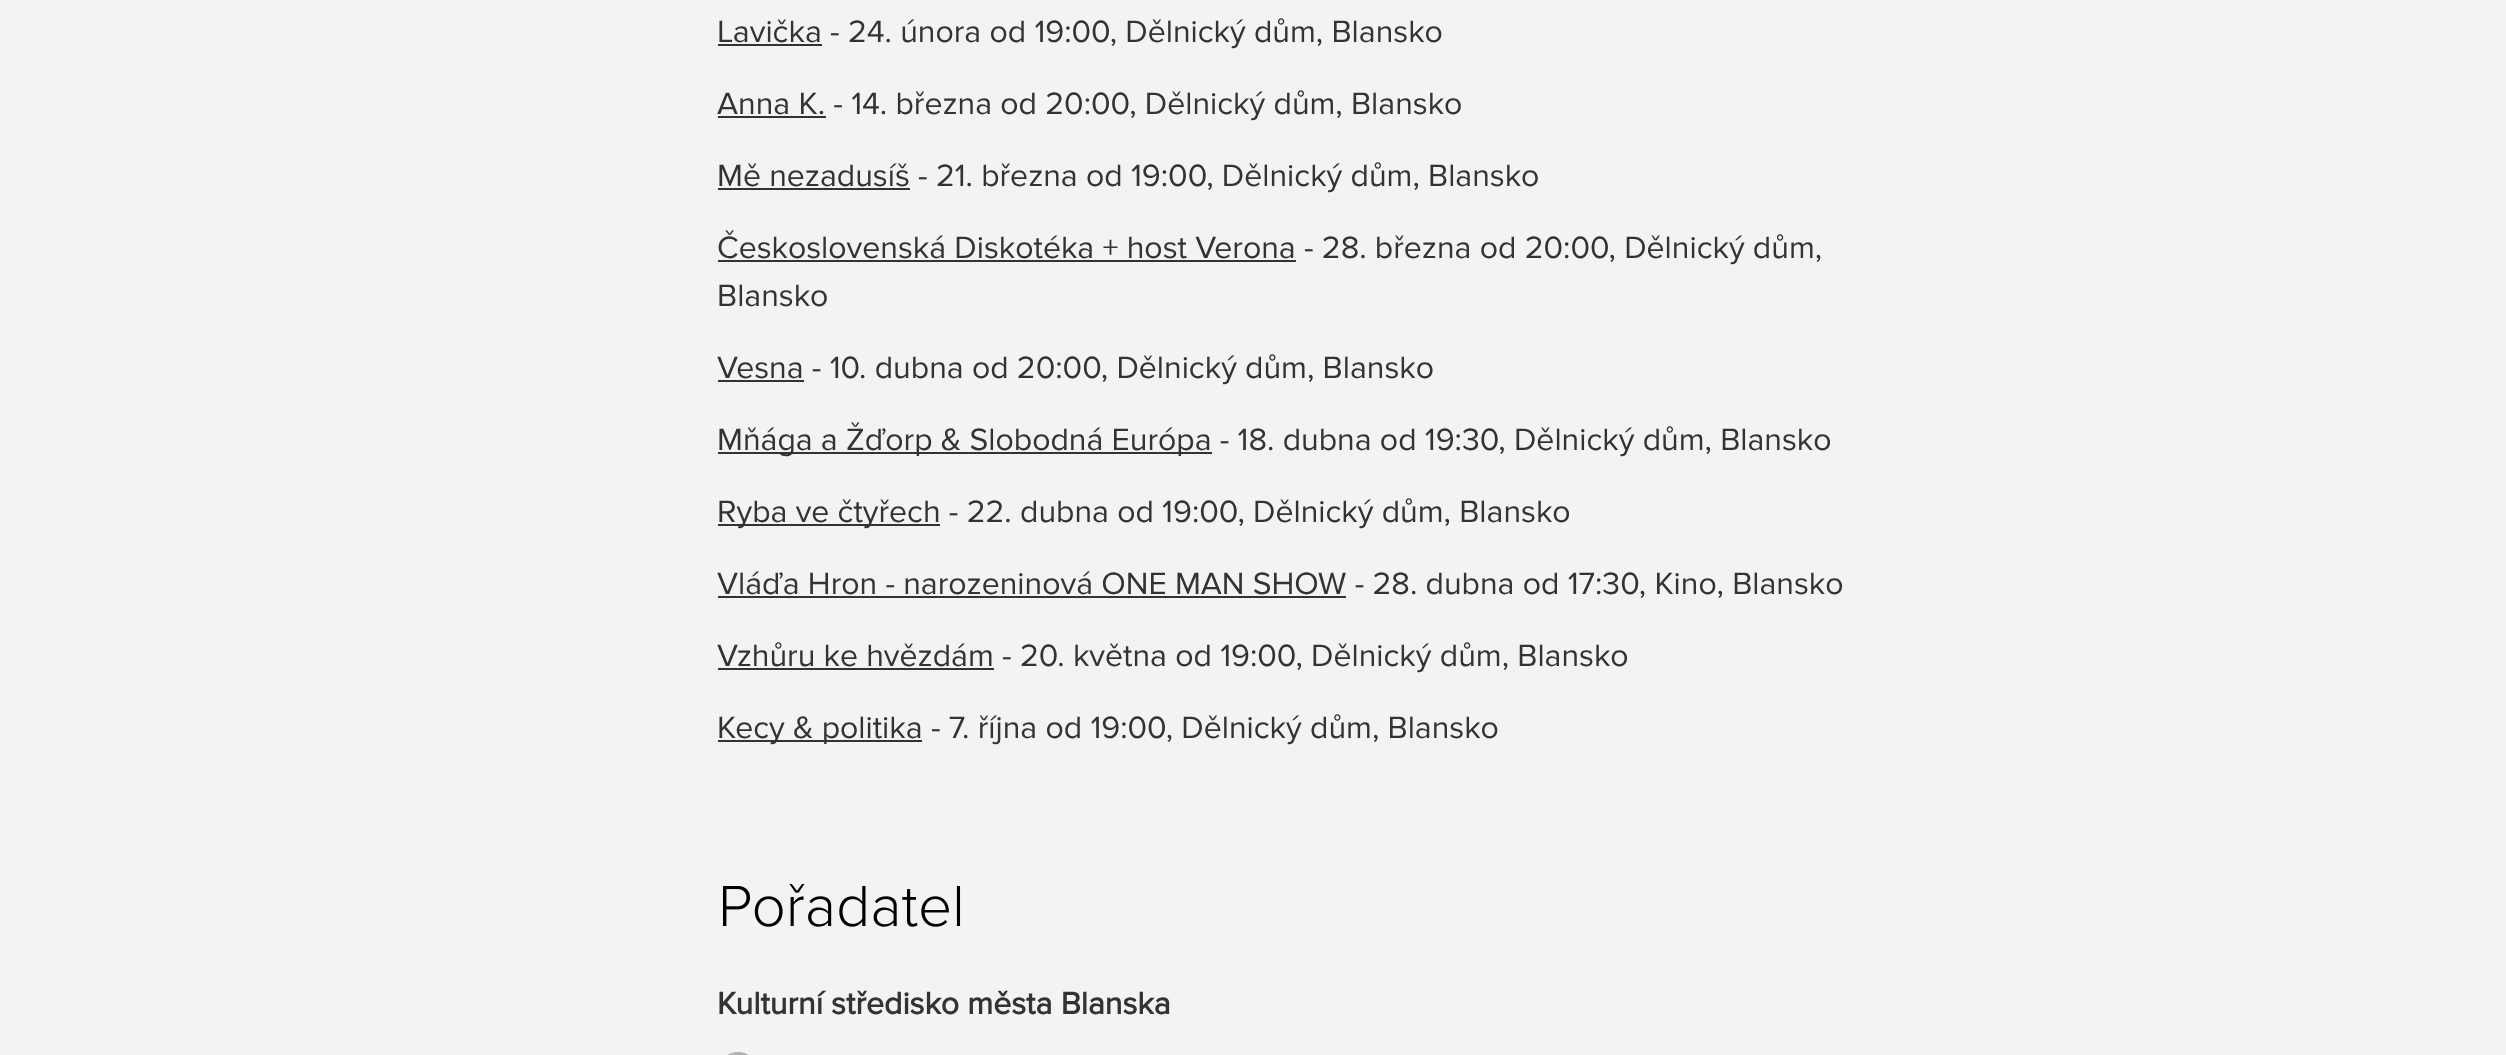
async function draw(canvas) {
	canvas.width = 2506;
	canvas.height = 1055;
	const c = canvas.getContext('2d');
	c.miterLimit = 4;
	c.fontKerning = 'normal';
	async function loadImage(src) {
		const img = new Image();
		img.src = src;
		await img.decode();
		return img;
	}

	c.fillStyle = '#f3f3f3';
	c.fillRect(0, 0, 2506, 1055);
	c.fillStyle = '#333';
	c.fillRect(718, 44, 104, 2);
	c.font = '32px Proxima Nova';
	c.fillText('Lavička - 24. února od 19:00, Dělnický dům, Blansko', 717, 42);
	c.fillRect(718, 116, 108, 2);
	c.fillText('Anna K. - 14. března od 20:00, Dělnický dům, Blansko', 717, 114);
	c.fillRect(718, 188, 192, 2);
	c.fillText('Mě nezadusíš - 21. března od 19:00, Dělnický dům, Blansko', 717, 186);
	c.fillRect(718, 260, 578, 2);
	c.fillText('Československá Diskotéka + host Verona - 28. března od 20:00, Dělnický dům,', 717, 258);
	c.fillText('Blansko', 717, 306);
	c.fillRect(718, 380, 86, 2);
	c.fillText('Vesna - 10. dubna od 20:00, Dělnický dům, Blansko', 717, 378);
	c.fillRect(718, 452, 494, 2);
	c.fillText('Mňága a Žďorp & Slobodná Európa - 18. dubna od 19:30, Dělnický dům, Blansko', 717, 450);
	c.fillRect(718, 524, 222, 2);
	c.fillText('Ryba ve čtyřech - 22. dubna od 19:00, Dělnický dům, Blansko', 717, 522);
	c.fillRect(718, 596, 628, 2);
	c.fillText('Vláďa Hron - narozeninová ONE MAN SHOW - 28. dubna od 17:30, Kino, Blansko', 717, 594);
	c.fillRect(718, 668, 276, 2);
	c.fillText('Vzhůru ke hvězdám - 20. května od 19:00, Dělnický dům, Blansko', 717, 666);
	c.fillRect(718, 740, 204, 2);
	c.fillText('Kecy & politika - 7. října od 19:00, Dělnický dům, Blansko', 717, 738);
	c.drawImage(await loadImage('img1.png'), 723, 884, 238, 43);
	c.font = 'bold 32px Proxima Nova';
	c.fillText('Kulturní středisko města Blanska', 717, 1014);
	c.drawImage(await loadImage('img2.png'), 727, 1052, 22, 3);
}

draw(document.querySelector('canvas'));
